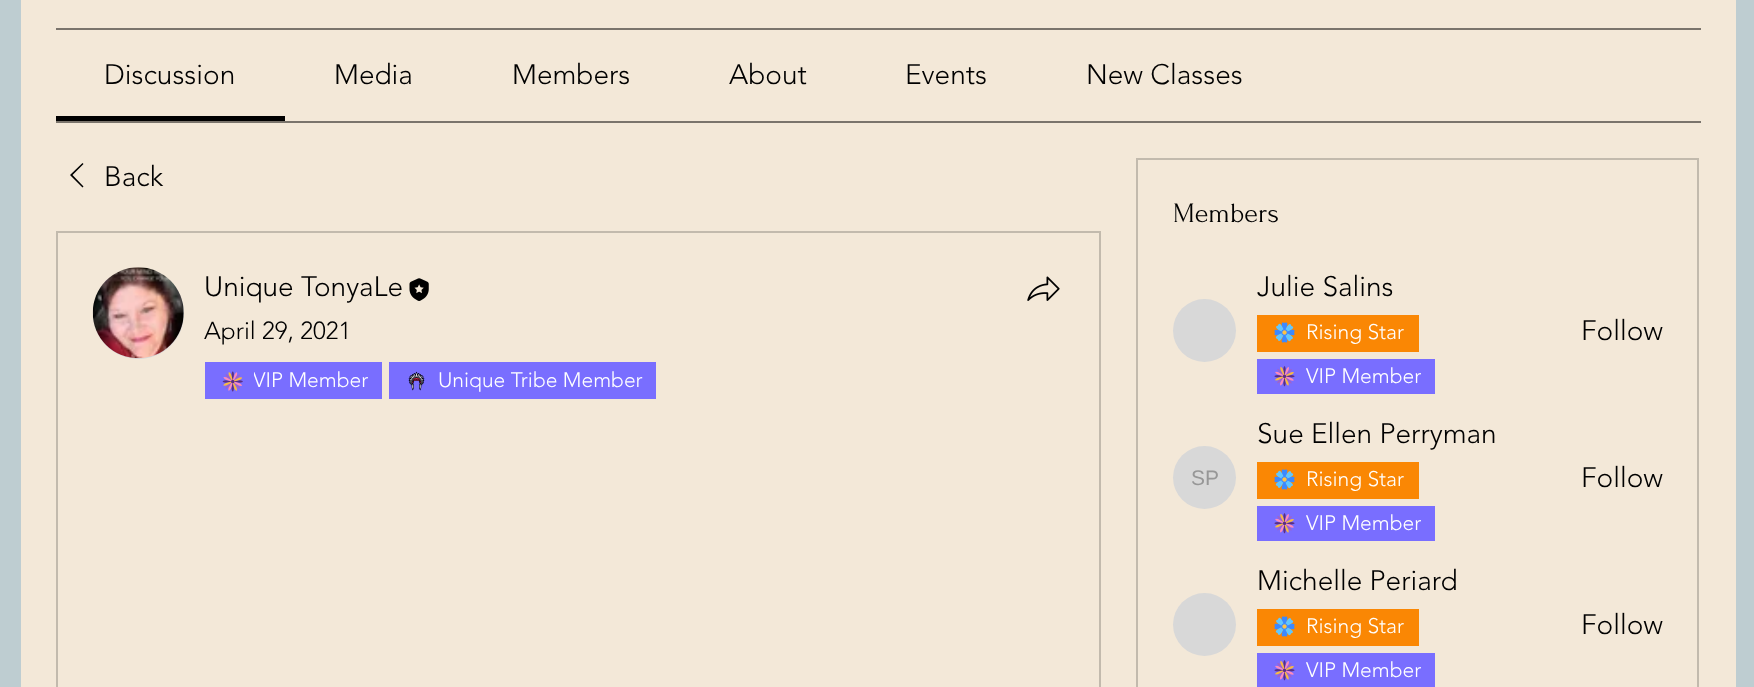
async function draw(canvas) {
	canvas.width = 1754;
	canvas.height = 687;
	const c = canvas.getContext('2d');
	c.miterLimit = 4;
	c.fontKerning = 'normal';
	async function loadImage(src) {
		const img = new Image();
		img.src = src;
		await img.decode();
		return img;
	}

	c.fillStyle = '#becdd1';
	c.fillRect(0, 0, 1754, 687);
	for (const [x, y, w, h, color] of [
		[21, 0, 1715, 687, '#f3e8d8'],
		[56, 28, 1645, 2, '#7a746c'],
		[56, 121, 1645, 2, '#7a746c'],
		[56, 116, 229, 5, '#000'],
	]) {
		c.fillStyle = color;
		c.fillRect(x, y, w, h);
	}
	c.font = '300 28px "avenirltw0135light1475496"';
	for (const [text, x, y] of [
		['Discussion', 104, 84],
		['Media', 334, 84],
		['Members', 512, 84],
		['About', 729, 84],
		['Events', 905, 84],
		['New Classes', 1086, 84],
	]) {
		c.fillText(text, x, y);
	}
	c.beginPath();
	c.moveTo(82.5, 163);
	c.lineTo(83.5, 164);
	c.lineTo(72.5, 175);
	c.lineTo(83.5, 186.5);
	c.lineTo(82.5, 187.5);
	c.lineTo(70, 175);
	c.closePath();
	c.fill('evenodd');
	c.fillText('Back', 104, 186);
	c.strokeStyle = '#c2baad';
	c.lineWidth = 2;
	c.strokeRect(57, 232, 1043, 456);
	c.fillStyle = '#d8d8d8';
	c.beginPath();
	c.arc(138.5, 313.5, 45.5, 0, 2 * Math.PI);
	c.fill();
	c.drawImage(await loadImage('img1.png'), 92, 267, 92, 92);
	c.fillStyle = '#000';
	c.fillText('Unique TonyaLe', 204, 296);
	c.drawImage(await loadImage('img2.png'), 409, 278, 20, 23);
	c.font = '300 24.5px "avenirltw0135light1475496"';
	c.fillText('April 29, 2021', 204, 339);
	c.fillStyle = '#796eff';
	c.fillRect(205, 362, 177, 37);
	c.drawImage(await loadImage('img3.png'), 222, 371, 21, 21);
	c.save();
	c.beginPath();
	c.rect(254, 366, 114, 30);
	c.clip();
	c.font = '300 21px "avenirltw0135light1475496"';
	c.fillStyle = '#fff';
	c.fillText('VIP Member', 253, 387);
	c.restore();
	c.fillRect(389, 362, 267, 37);
	c.drawImage(await loadImage('img4.png'), 408, 371, 17, 20);
	c.font = '300 21px "avenirltw0135light1475496"';
	c.fillStyle = '#fff';
	c.fillText('Unique Tribe Member', 438, 387);
	c.drawImage(await loadImage('img5.png'), 1027, 276, 33, 25);
	c.strokeRect(1137, 159, 561, 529);
	c.font = '28px Forum';
	c.fillStyle = '#000';
	c.fillText('Members', 1173, 222);
	c.fillStyle = '#d8d8d8';
	c.beginPath();
	c.arc(1204.5, 330.5, 31.5, 0, 2 * Math.PI);
	c.fill();
	c.font = '300 28px "avenirltw0135light1475496"';
	c.fillStyle = '#000';
	c.fillText('Julie Salins', 1257, 296);
	c.fillStyle = '#fa8704';
	c.fillRect(1257, 315, 162, 37);
	c.drawImage(await loadImage('img6.png'), 1274, 322, 21, 21);
	c.font = '300 21px "avenirltw0135light1475496"';
	c.fillStyle = '#fff';
	c.fillText('Rising Star', 1306, 339);
	c.fillStyle = '#796eff';
	c.fillRect(1257, 359, 178, 35);
	c.drawImage(await loadImage('img7.png'), 1274, 366, 21, 21);
	c.fillStyle = '#fff';
	c.fillText('VIP Member', 1306, 383);
	c.font = '300 28px "avenirltw0135light1475496"';
	c.fillStyle = '#000';
	c.fillText('Follow', 1581, 340);
	c.fillStyle = '#d8d8d8';
	c.beginPath();
	c.arc(1204.5, 477.5, 31.5, 0, 2 * Math.PI);
	c.fill();
	c.font = '21px Liberation Sans';
	c.fillStyle = '#979797';
	c.fillText('SP', 1191, 485);
	c.font = '300 28px "avenirltw0135light1475496"';
	c.fillStyle = '#000';
	c.fillText('Sue Ellen Perryman', 1257, 443);
	c.fillStyle = '#fa8704';
	c.fillRect(1257, 462, 162, 37);
	c.drawImage(await loadImage('img6.png'), 1274, 469, 21, 21);
	c.font = '300 21px "avenirltw0135light1475496"';
	c.fillStyle = '#fff';
	c.fillText('Rising Star', 1306, 486);
	c.fillStyle = '#796eff';
	c.fillRect(1257, 506, 178, 35);
	c.drawImage(await loadImage('img7.png'), 1274, 513, 21, 21);
	c.fillStyle = '#fff';
	c.fillText('VIP Member', 1306, 530);
	c.font = '300 28px "avenirltw0135light1475496"';
	c.fillStyle = '#000';
	c.fillText('Follow', 1581, 487);
	c.fillStyle = '#d8d8d8';
	c.beginPath();
	c.arc(1204.5, 624.5, 31.5, 0, 2 * Math.PI);
	c.fill();
	c.fillStyle = '#000';
	c.fillText('Michelle Periard', 1257, 590);
	c.fillStyle = '#fa8704';
	c.fillRect(1257, 609, 162, 37);
	c.drawImage(await loadImage('img6.png'), 1274, 616, 21, 21);
	c.font = '300 21px "avenirltw0135light1475496"';
	c.fillStyle = '#fff';
	c.fillText('Rising Star', 1306, 633);
	c.fillStyle = '#796eff';
	c.fillRect(1257, 653, 178, 34);
	c.drawImage(await loadImage('img7.png'), 1274, 660, 21, 21);
	c.fillStyle = '#fff';
	c.fillText('VIP Member', 1306, 677);
	c.font = '300 28px "avenirltw0135light1475496"';
	c.fillStyle = '#000';
	c.fillText('Follow', 1581, 634);
}

draw(document.querySelector('canvas'));
